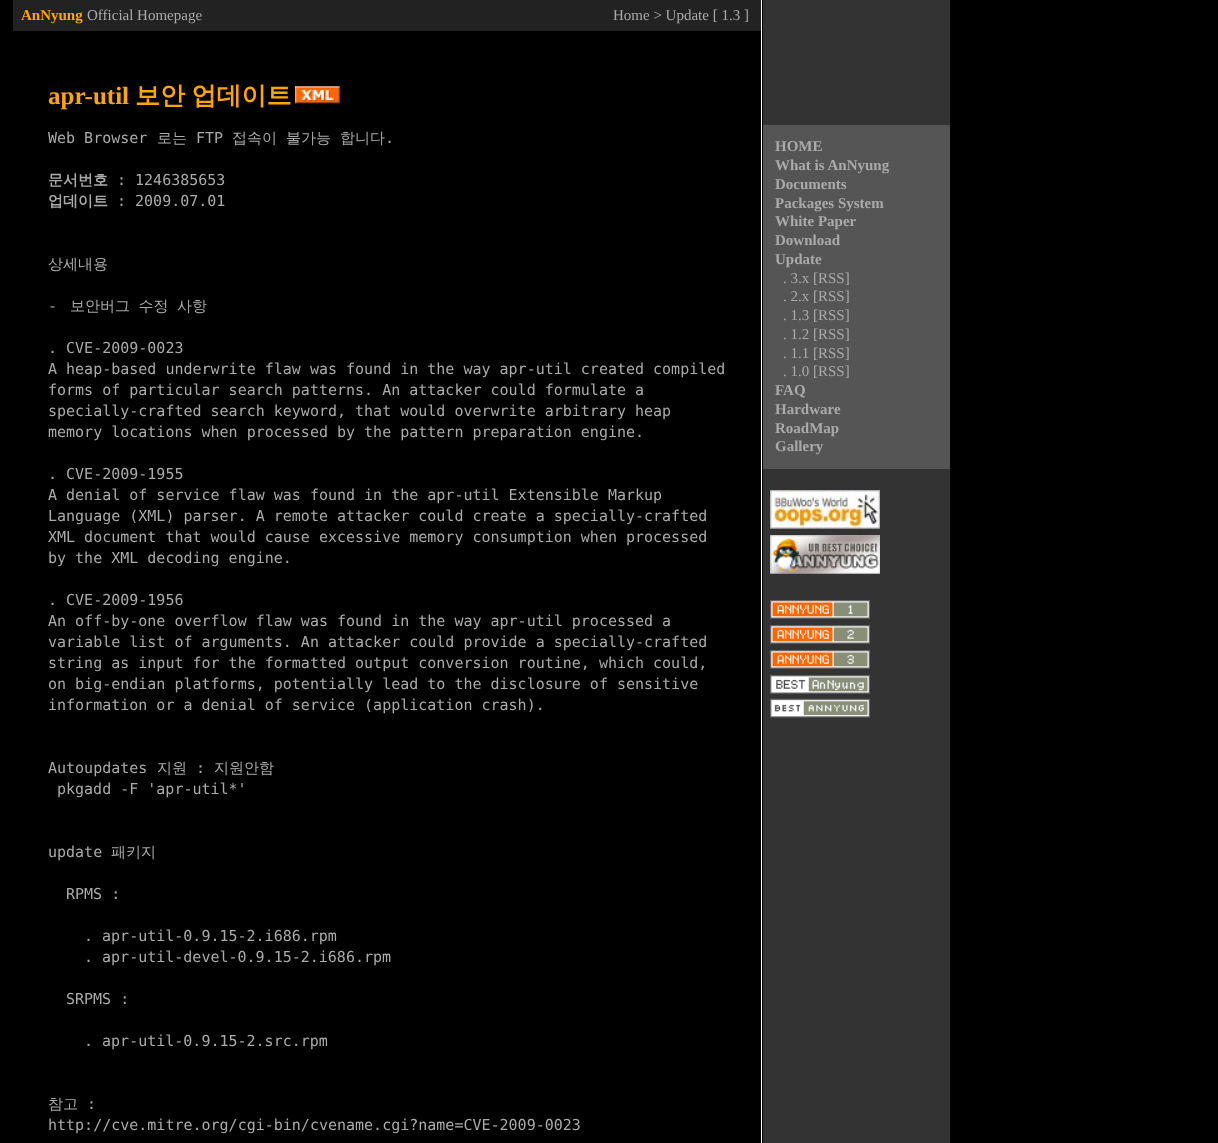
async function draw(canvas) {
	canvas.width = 1218;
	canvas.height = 1143;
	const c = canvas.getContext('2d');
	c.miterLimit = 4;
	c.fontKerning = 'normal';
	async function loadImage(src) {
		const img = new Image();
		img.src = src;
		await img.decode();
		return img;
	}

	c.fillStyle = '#000';
	c.fillRect(0, 0, 1218, 1143);
	c.fillStyle = '#222';
	c.fillRect(13, 0, 748, 31);
	c.font = 'bold 15px Liberation Serif';
	c.fillStyle = '#ffa500';
	c.fillText('AnNyung', 21, 20);
	c.font = '15px Liberation Serif';
	c.fillStyle = '#aaa';
	c.fillText('Official Homepage', 87, 20);
	c.fillText('Home > Update [ 1.3 ]', 613, 20);
	for (const [x, y, w, h, color] of [
		[761, 0, 1, 1143, '#fff'],
		[763, 0, 187, 1143, '#333'],
		[763, 125, 187, 344, '#555'],
	]) {
		c.fillStyle = color;
		c.fillRect(x, y, w, h);
	}
	c.font = 'bold 15px Liberation Serif';
	c.fillStyle = '#aaa';
	for (const [text, x, y] of [
		['HOME', 775, 151],
		['What is AnNyung', 775, 170],
		['Documents', 775, 189],
		['Packages System', 775, 208],
		['White Paper', 775, 226],
		['Download', 775, 245],
		['Update', 775, 264],
	]) {
		c.fillText(text, x, y);
	}
	c.font = '15px Liberation Serif';
	for (const [text, x, y] of [
		['. 3.x [RSS]', 783, 283],
		['. 2.x [RSS]', 783, 301],
		['. 1.3 [RSS]', 783, 320],
		['. 1.2 [RSS]', 783, 339],
		['. 1.1 [RSS]', 783, 358],
		['. 1.0 [RSS]', 783, 376],
	]) {
		c.fillText(text, x, y);
	}
	c.font = 'bold 15px Liberation Serif';
	for (const [text, x, y] of [
		['FAQ', 775, 395],
		['Hardware', 775, 414],
		['RoadMap', 775, 433],
		['Gallery', 775, 451],
	]) {
		c.fillText(text, x, y);
	}
	c.drawImage(await loadImage('img1.png'), 770, 490, 110, 39);
	c.drawImage(await loadImage('img2.png'), 770, 535, 110, 39);
	c.drawImage(await loadImage('img3.png'), 770, 600, 100, 19);
	c.drawImage(await loadImage('img4.png'), 770, 625, 100, 19);
	c.drawImage(await loadImage('img5.png'), 770, 650, 100, 19);
	c.drawImage(await loadImage('img6.png'), 770, 675, 100, 19);
	c.drawImage(await loadImage('img7.png'), 770, 698, 100, 20);
	c.font = 'bold 25px Liberation Serif';
	c.fillStyle = '#ffa500';
	c.fillText('apr-util', 48, 104);
	c.wordSpacing = '-1px';
	c.font = 'bold 25px WenQuanYi Zen Hei';
	c.fillText('보안 업데이트', 135, 104);
	c.drawImage(await loadImage('img8.png'), 295, 86, 45, 18);
	c.wordSpacing = '0px';
	c.font = '15px DejaVu Sans Mono';
	c.fillStyle = '#aaa';
	c.fillText('Web Browser', 48, 143);
	c.font = '500 15px WenQuanYi Zen Hei';
	c.fillText('로는', 157, 143);
	c.font = '15px DejaVu Sans Mono';
	c.fillText('FTP', 196, 143);
	c.font = '500 15px WenQuanYi Zen Hei';
	for (const [text, x, y] of [
		['접속이', 232, 143],
		['불가능', 286, 143],
		['합니다', 340, 143],
	]) {
		c.fillText(text, x, y);
	}
	c.font = '15px DejaVu Sans Mono';
	c.fillText('.', 385, 143);
	c.font = 'bold 15px WenQuanYi Zen Hei';
	c.fillText('문서번호', 48, 185);
	c.font = '15px DejaVu Sans Mono';
	c.fillText(': 1246385653', 117, 185);
	c.font = 'bold 15px WenQuanYi Zen Hei';
	c.fillText('업데이트', 48, 206);
	c.font = '15px DejaVu Sans Mono';
	c.fillText(': 2009.07.01', 117, 206);
	c.font = '500 15px WenQuanYi Zen Hei';
	c.fillText('상세내용', 48, 269);
	c.font = '15px DejaVu Sans Mono';
	c.fillText('-', 48, 311);
	c.wordSpacing = '4px';
	c.font = '500 15px WenQuanYi Zen Hei';
	c.fillText('보안버그 수정 사항', 70, 311);
	c.wordSpacing = '0px';
	c.font = '15px DejaVu Sans Mono';
	for (const [text, x, y] of [
		['. CVE-2009-0023', 48, 353],
		['A heap-based underwrite flaw was found in the way apr-util created compiled', 48, 374],
		['forms of particular search patterns. An attacker could formulate a', 48, 395],
		['specially-crafted search keyword, that would overwrite arbitrary heap', 48, 416],
		['memory locations when processed by the pattern preparation engine.', 48, 437],
		['. CVE-2009-1955', 48, 479],
		['A denial of service flaw was found in the apr-util Extensible Markup', 48, 500],
		['Language (XML) parser. A remote attacker could create a specially-crafted', 48, 521],
		['XML document that would cause excessive memory consumption when processed', 48, 542],
		['by the XML decoding engine.', 48, 563],
		['. CVE-2009-1956', 48, 605],
		['An off-by-one overflow flaw was found in the way apr-util processed a', 48, 626],
		['variable list of arguments. An attacker could provide a specially-crafted', 48, 647],
		['string as input for the formatted output conversion routine, which could,', 48, 668],
		['on big-endian platforms, potentially lead to the disclosure of sensitive', 48, 689],
		['information or a denial of service (application crash).', 48, 710],
		['Autoupdates', 48, 773],
	]) {
		c.fillText(text, x, y);
	}
	c.font = '500 15px WenQuanYi Zen Hei';
	c.fillText('지원', 157, 773);
	c.font = '15px DejaVu Sans Mono';
	c.fillText(':', 196, 773);
	c.font = '500 15px WenQuanYi Zen Hei';
	c.fillText('지원안함', 214, 773);
	c.font = '15px DejaVu Sans Mono';
	c.fillText('pkgadd -F \'apr-util*\'', 57, 794);
	c.fillText('update', 48, 857);
	c.font = '500 15px WenQuanYi Zen Hei';
	c.fillText('패키지', 111, 857);
	c.font = '15px DejaVu Sans Mono';
	for (const [text, x, y] of [
		['RPMS :', 66, 899],
		['. apr-util-0.9.15-2.i686.rpm', 84, 941],
		['. apr-util-devel-0.9.15-2.i686.rpm', 84, 962],
		['SRPMS :', 66, 1004],
		['. apr-util-0.9.15-2.src.rpm', 84, 1046],
	]) {
		c.fillText(text, x, y);
	}
	c.font = '500 15px WenQuanYi Zen Hei';
	c.fillText('참고', 48, 1109);
	c.font = '15px DejaVu Sans Mono';
	c.fillText(':', 87, 1109);
	c.fillText('http://cve.mitre.org/cgi-bin/cvename.cgi?name=CVE-2009-0023', 48, 1130);
}

draw(document.querySelector('canvas'));
